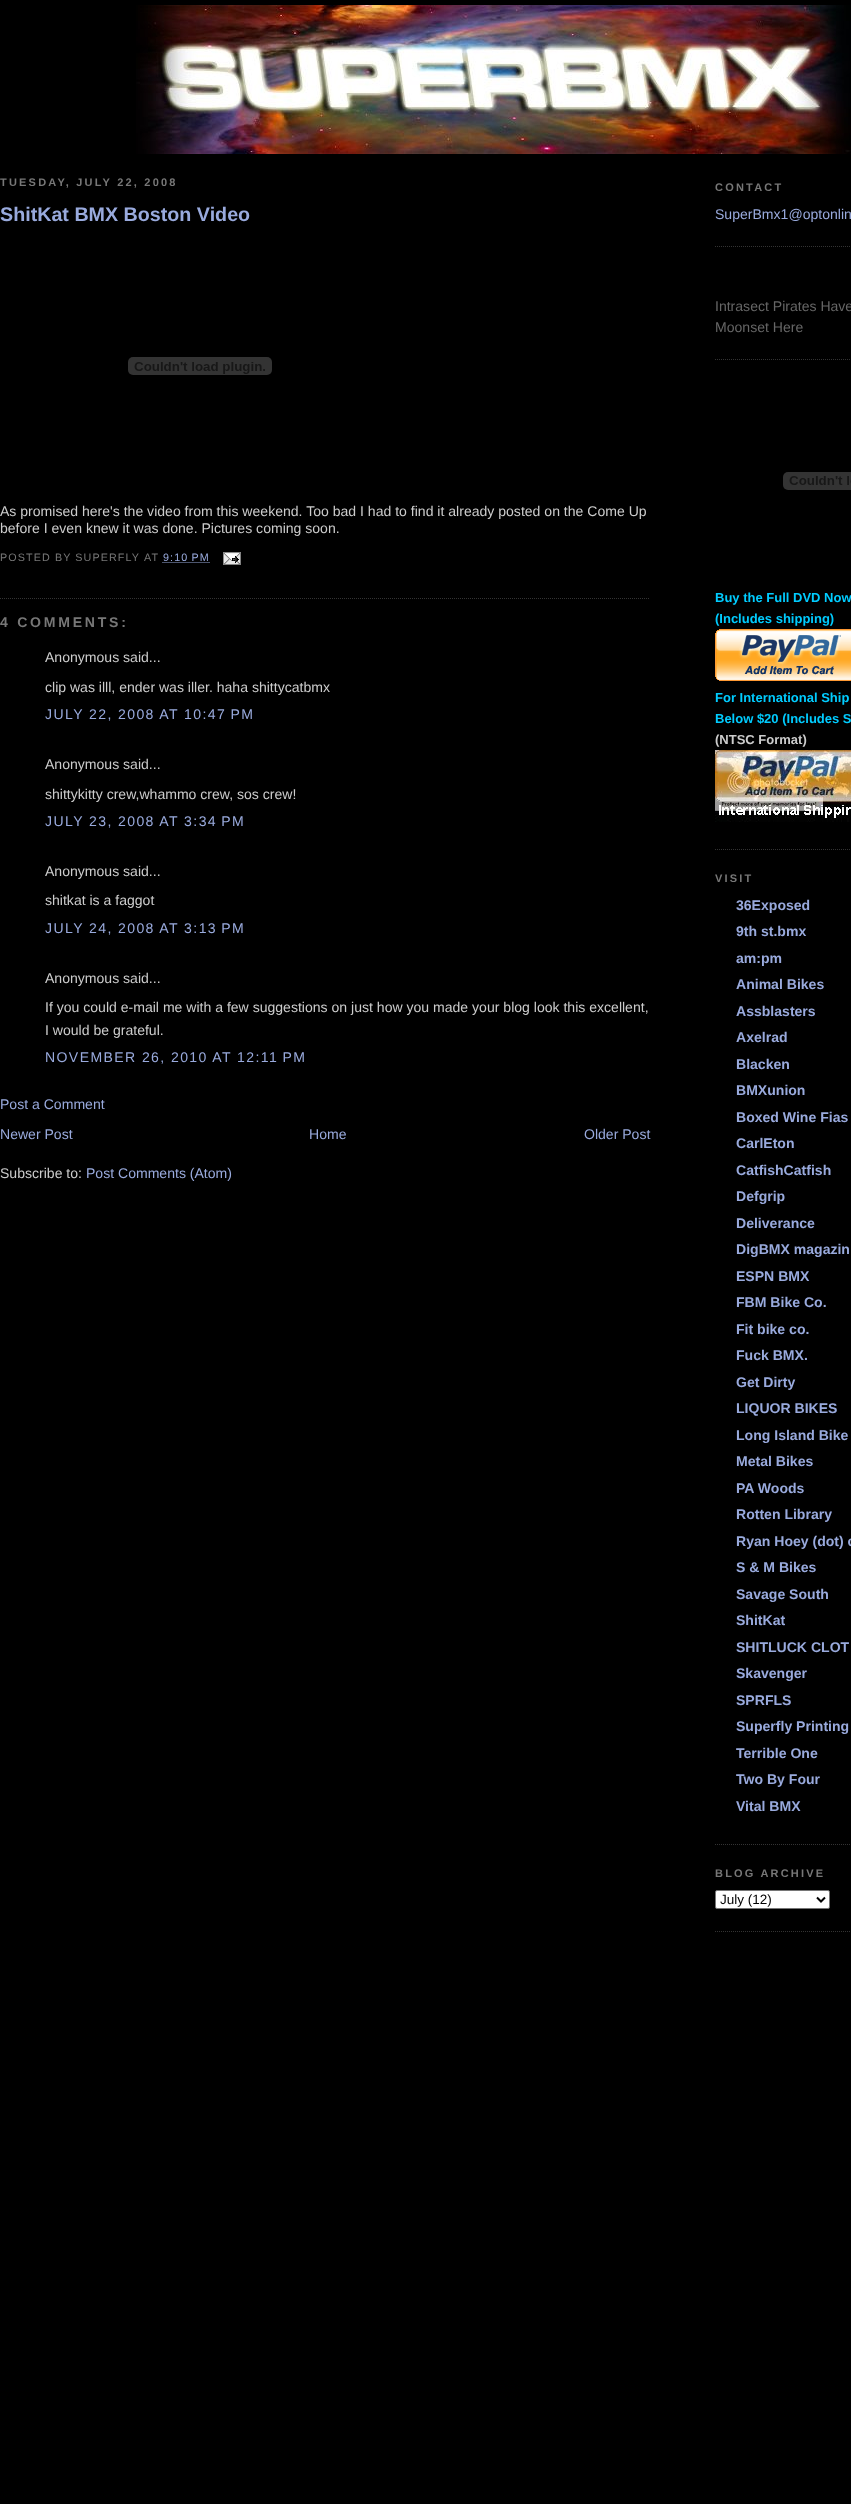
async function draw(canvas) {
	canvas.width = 851;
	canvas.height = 2504;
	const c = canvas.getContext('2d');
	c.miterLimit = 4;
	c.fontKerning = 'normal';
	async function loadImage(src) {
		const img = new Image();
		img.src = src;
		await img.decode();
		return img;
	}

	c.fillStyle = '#000';
	c.fillRect(0, 0, 851, 2504);
	c.drawImage(await loadImage('img1.png'), 136, 5, 715, 149);
	c.letterSpacing = '2.2px';
	c.font = 'bold 11px Liberation Sans';
	c.fillStyle = '#777';
	c.fillText('TUESDAY, JULY 22, 2008', 0, 186);
	c.beginPath();
	c.moveTo(0, 598.5);
	c.lineTo(650, 598.5);
	c.strokeStyle = '#333';
	c.setLineDash([1, 1]);
	c.stroke();
	c.letterSpacing = '0px';
	c.font = 'bold 19.7px Liberation Sans';
	c.fillStyle = '#9ad';
	c.fillText('ShitKat BMX Boston Video', 0, 221);
	c.drawImage(await loadImage('img2.png'), 128, 357, 144, 18);
	c.font = '14.05px Liberation Sans';
	c.fillStyle = '#ccc';
	c.fillText('As promised here\'s the video from this weekend. Too bad I had to find it already posted on the Come Up', 0, 516);
	c.fillText('before I even knew it was done. Pictures coming soon.', 0, 533);
	c.letterSpacing = '1.1px';
	c.font = '10.75px Liberation Sans';
	c.fillStyle = '#777';
	c.fillText('POSTED BY SUPERFLY', 0, 561);
	c.fillText('AT', 144, 561);
	c.fillStyle = '#9ad';
	c.fillText('9:10 PM', 163, 561);
	c.beginPath();
	c.moveTo(162.5, 562.5);
	c.lineTo(209.5, 562.5);
	c.strokeStyle = '#9ad';
	c.stroke();
	c.drawImage(await loadImage('img3.png'), 223, 552, 18, 13);
	c.letterSpacing = '2.75px';
	c.font = 'bold 14.05px Liberation Sans';
	c.fillStyle = '#777';
	c.fillText('4 COMMENTS:', 0, 627);
	c.letterSpacing = '0px';
	c.font = '14.05px Liberation Sans';
	c.fillStyle = '#ccc';
	c.fillText('Anonymous said...', 45, 662);
	c.fillText('clip was illl, ender was iller. haha shittycatbmx', 45, 692);
	c.letterSpacing = '1.4px';
	c.fillStyle = '#9ad';
	c.fillText('JULY 22, 2008 AT 10:47 PM', 45, 719);
	c.letterSpacing = '0px';
	c.fillStyle = '#ccc';
	c.fillText('Anonymous said...', 45, 769);
	c.fillText('shittykitty crew,whammo crew, sos crew!', 45, 799);
	c.letterSpacing = '1.4px';
	c.fillStyle = '#9ad';
	c.fillText('JULY 23, 2008 AT 3:34 PM', 45, 826);
	c.letterSpacing = '0px';
	c.fillStyle = '#ccc';
	c.fillText('Anonymous said...', 45, 876);
	c.fillText('shitkat is a faggot', 45, 905);
	c.letterSpacing = '1.4px';
	c.fillStyle = '#9ad';
	c.fillText('JULY 24, 2008 AT 3:13 PM', 45, 933);
	c.letterSpacing = '0px';
	c.fillStyle = '#ccc';
	for (const [text, x, y] of [
		['Anonymous said...', 45, 983],
		['If you could e-mail me with a few suggestions on just how you made your blog look this excellent,', 45, 1012],
		['I would be grateful.', 45, 1035],
	]) {
		c.fillText(text, x, y);
	}
	c.letterSpacing = '1.4px';
	c.fillStyle = '#9ad';
	c.fillText('NOVEMBER 26, 2010 AT 12:11 PM', 45, 1062);
	c.letterSpacing = '0px';
	for (const [text, x, y] of [
		['Post a Comment', 0, 1109],
		['Newer Post', 0, 1139],
		['Home', 309, 1139],
		['Older Post', 584, 1139],
	]) {
		c.fillText(text, x, y);
	}
	c.fillStyle = '#ccc';
	c.fillText('Subscribe to:', 0, 1178);
	c.fillStyle = '#9ad';
	c.fillText('Post Comments (Atom)', 86, 1178);
	c.beginPath();
	c.moveTo(715, 246.5);
	c.lineTo(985, 246.5);
	c.strokeStyle = '#333';
	c.stroke();
	c.letterSpacing = '2.2px';
	c.font = 'bold 11px Liberation Sans';
	c.fillStyle = '#777';
	c.fillText('CONTACT', 715, 191);
	c.letterSpacing = '0px';
	c.font = '14.05px Liberation Sans';
	c.fillStyle = '#9ad';
	c.fillText('SuperBmx1@optonlin', 715, 219);
	c.beginPath();
	c.moveTo(715, 359.5);
	c.lineTo(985, 359.5);
	c.stroke();
	c.fillStyle = '#666';
	c.fillText('Intrasect Pirates Have', 715, 311);
	c.fillText('Moonset Here', 715, 332);
	c.beginPath();
	c.moveTo(715, 849.5);
	c.lineTo(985, 849.5);
	c.stroke();
	c.drawImage(await loadImage('img4.png'), 783, 472, 68, 18);
	c.font = 'bold 13px Liberation Sans';
	c.fillStyle = '#0cf';
	c.fillText('Buy the Full DVD Now', 715, 602);
	c.fillText('(Includes shipping)', 715, 623);
	c.drawImage(await loadImage('img5.png'), 715, 629, 136, 52);
	c.fillText('For International Ship', 715, 702);
	c.fillText('Below $20 (Includes S', 715, 723);
	c.fillStyle = '#ccc';
	c.fillText('(NTSC Format)', 715, 744);
	c.drawImage(await loadImage('img6.png'), 715, 750, 136, 72);
	c.beginPath();
	c.moveTo(715, 1844.5);
	c.lineTo(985, 1844.5);
	c.stroke();
	c.letterSpacing = '2.2px';
	c.font = 'bold 11px Liberation Sans';
	c.fillStyle = '#777';
	c.fillText('VISIT', 715, 882);
	c.letterSpacing = '0px';
	c.font = 'bold 14.05px Liberation Sans';
	c.fillStyle = '#9ad';
	for (const [text, x, y] of [
		['36Exposed', 736, 910],
		['9th st.bmx', 736, 936],
		['am:pm', 736, 963],
		['Animal Bikes', 736, 989],
		['Assblasters', 736, 1016],
		['Axelrad', 736, 1042],
		['Blacken', 736, 1069],
		['BMXunion', 736, 1095],
		['Boxed Wine Fias', 736, 1122],
		['CarlEton', 736, 1148],
		['CatfishCatfish', 736, 1175],
		['Defgrip', 736, 1201],
		['Deliverance', 736, 1228],
		['DigBMX magazin', 736, 1254],
		['ESPN BMX', 736, 1281],
		['FBM Bike Co.', 736, 1307],
		['Fit bike co.', 736, 1334],
		['Fuck BMX.', 736, 1360],
		['Get Dirty', 736, 1387],
		['LIQUOR BIKES', 736, 1413],
		['Long Island Bike', 736, 1440],
		['Metal Bikes', 736, 1466],
		['PA Woods', 736, 1493],
		['Rotten Library', 736, 1519],
		['Ryan Hoey (dot) c', 736, 1546],
		['S & M Bikes', 736, 1572],
		['Savage South', 736, 1599],
		['ShitKat', 736, 1625],
		['SHITLUCK CLOT', 736, 1652],
		['Skavenger', 736, 1678],
		['SPRFLS', 736, 1705],
		['Superfly Printing', 736, 1731],
		['Terrible One', 736, 1758],
		['Two By Four', 736, 1784],
		['Vital BMX', 736, 1811],
	]) {
		c.fillText(text, x, y);
	}
	c.beginPath();
	c.moveTo(715, 1931.5);
	c.lineTo(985, 1931.5);
	c.stroke();
	c.letterSpacing = '2.2px';
	c.font = 'bold 11px Liberation Sans';
	c.fillStyle = '#777';
	c.fillText('BLOG ARCHIVE', 715, 1877);
	c.fillStyle = '#fff';
	c.beginPath();
	c.roundRect(715.5, 1890.5, 114, 18, 1.5);
	c.fill();
	c.strokeStyle = '#767676';
	c.setLineDash([]);
	c.stroke();
	c.beginPath();
	c.moveTo(817, 1897.5);
	c.lineTo(821, 1901.5);
	c.lineTo(825, 1897.5);
	c.strokeStyle = '#000';
	c.lineWidth = 2;
	c.stroke();
	c.letterSpacing = '0px';
	c.font = '13.5px Liberation Sans';
	c.fillStyle = '#000';
	c.fillText('July (12)', 720, 1904);
}

draw(document.querySelector('canvas'));
